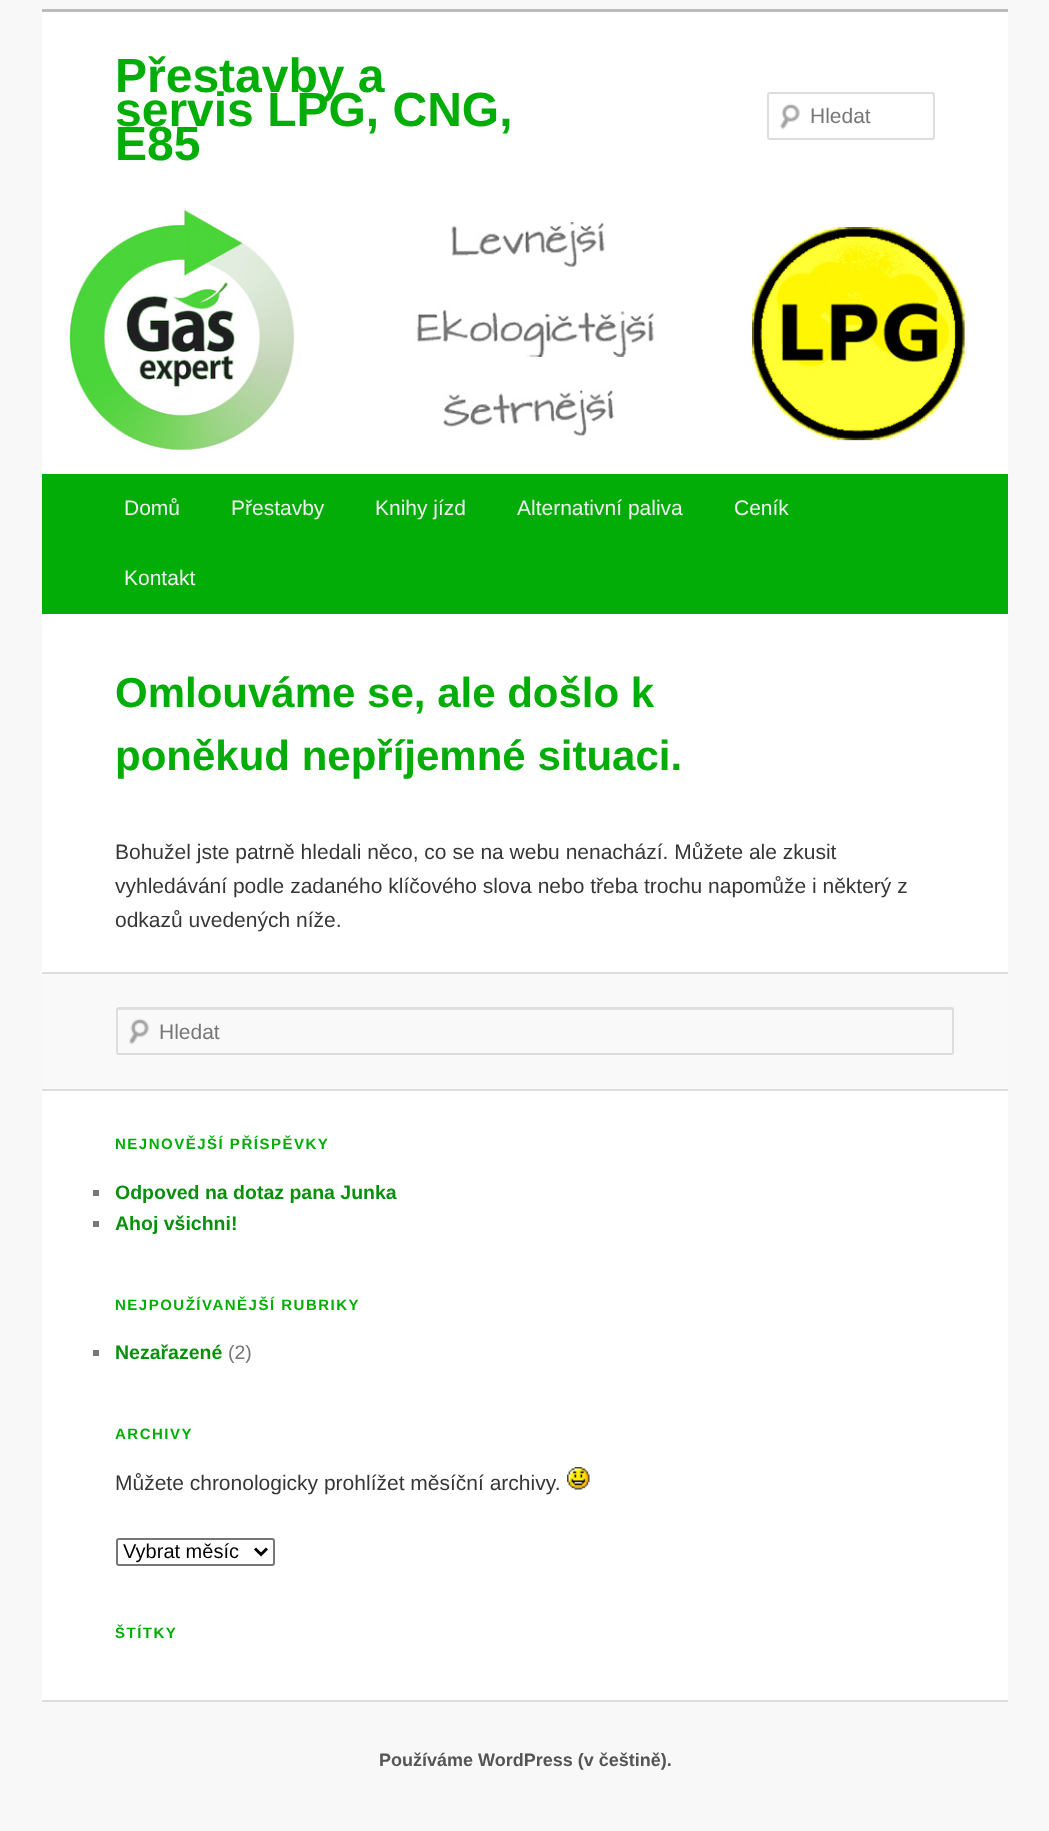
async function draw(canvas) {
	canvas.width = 1049;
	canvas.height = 1831;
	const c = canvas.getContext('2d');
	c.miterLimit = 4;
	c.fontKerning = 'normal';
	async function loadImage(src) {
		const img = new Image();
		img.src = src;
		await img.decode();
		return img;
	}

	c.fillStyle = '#f8f8f8';
	c.fillRect(0, 0, 1049, 1831);
	c.fillStyle = '#fff';
	c.fillRect(42, 12, 966, 1688);
	c.fillStyle = '#bbb';
	c.fillRect(42, 9, 966, 3);
	c.font = 'bold 48px Liberation Sans';
	c.fillStyle = '#03ad07';
	for (const [text, x, y] of [
		['Přestavby a', 115, 92],
		['servis LPG, CNG,', 115, 126],
		['E85', 115, 160],
	]) {
		c.fillText(text, x, y);
	}
	c.drawImage(await loadImage('img1.png'), 780, 103, 20, 27);
	c.fillStyle = '#e6e6e6';
	c.beginPath();
	c.moveTo(770, 94);
	c.lineTo(932, 94);
	c.lineTo(933, 96);
	c.lineTo(933, 94);
	c.bezierCurveTo(933, 94, 932, 93, 932, 93);
	c.lineTo(770, 93);
	c.bezierCurveTo(769, 93, 768, 94, 768, 94);
	c.lineTo(768, 96);
	c.bezierCurveTo(768, 95, 769, 94, 770, 94);
	c.closePath();
	c.fill();
	c.beginPath();
	c.roundRect(768, 93, 166, 46, 2);
	c.strokeStyle = '#ddd';
	c.lineWidth = 2;
	c.stroke();
	c.font = '21px Liberation Sans';
	c.fillStyle = '#777';
	c.fillText('Hledat', 810, 123);
	c.drawImage(await loadImage('img2.png'), 42, 209, 966, 265);
	c.fillStyle = '#03ad07';
	c.fillRect(42, 474, 966, 140);
	c.fillStyle = '#eee';
	for (const [text, x, y] of [
		['Domů', 124, 515],
		['Přestavby', 231, 515],
		['Knihy jízd', 375, 515],
		['Alternativní paliva', 517, 515],
		['Ceník', 734, 515],
		['Kontakt', 124, 585],
	]) {
		c.fillText(text, x, y);
	}
	c.font = 'bold 42px Liberation Sans';
	c.fillStyle = '#03ad07';
	c.fillText('Omlouváme se, ale došlo k', 115, 707);
	c.fillText('poněkud nepříjemné situaci.', 115, 770);
	c.font = '21px Liberation Sans';
	c.fillStyle = '#373737';
	for (const [text, x, y] of [
		['Bohužel jste patrně hledali něco, co se na webu nenachází. Můžete ale zkusit', 115, 859],
		['vyhledávání podle zadaného klíčového slova nebo třeba trochu napomůže i některý z', 115, 893],
		['odkazů uvedených níže.', 115, 927],
	]) {
		c.fillText(text, x, y);
	}
	for (const [x, y, w, h, color] of [
		[42, 974, 966, 115, '#f9f9f9'],
		[42, 972, 966, 2, '#ddd'],
		[42, 1089, 966, 2, '#ddd'],
	]) {
		c.fillStyle = color;
		c.fillRect(x, y, w, h);
	}
	c.drawImage(await loadImage('img3.png'), 129, 1018, 20, 27);
	c.fillStyle = '#e0e0e0';
	c.beginPath();
	c.moveTo(118, 1010);
	c.lineTo(951, 1010);
	c.bezierCurveTo(952, 1010, 952, 1010, 952, 1011);
	c.lineTo(952, 1053);
	c.lineTo(953, 1052);
	c.lineTo(953, 1010);
	c.bezierCurveTo(953, 1009, 952, 1008, 952, 1008);
	c.lineTo(118, 1008);
	c.lineTo(117, 1009);
	c.lineTo(117, 1011);
	c.closePath();
	c.fill();
	c.beginPath();
	c.roundRect(117, 1008, 836, 46, 2);
	c.stroke();
	c.fillStyle = '#777';
	c.fillText('Hledat', 159, 1039);
	c.letterSpacing = '1.5px';
	c.font = 'bold 15px Liberation Sans';
	c.fillStyle = '#03ad07';
	c.fillText('NEJNOVĚJŠÍ PŘÍSPĚVKY', 115, 1149);
	c.fillStyle = '#777';
	c.fillRect(93, 1190, 6, 6);
	c.letterSpacing = '0px';
	c.font = 'bold 19.5px Liberation Sans';
	c.fillStyle = '#08900c';
	c.fillText('Odpoved na dotaz pana Junka', 115, 1199);
	c.fillStyle = '#777';
	c.fillRect(93, 1221, 6, 6);
	c.fillStyle = '#08900c';
	c.fillText('Ahoj všichni!', 115, 1230);
	c.letterSpacing = '1.5px';
	c.font = 'bold 15px Liberation Sans';
	c.fillStyle = '#03ad07';
	c.fillText('NEJPOUŽÍVANĚJŠÍ RUBRIKY', 115, 1310);
	c.fillStyle = '#777';
	c.fillRect(93, 1350, 6, 6);
	c.letterSpacing = '0px';
	c.font = 'bold 19.5px Liberation Sans';
	c.fillStyle = '#08900c';
	c.fillText('Nezařazené', 115, 1359);
	c.font = '19.5px Liberation Sans';
	c.fillStyle = '#777';
	c.fillText('(2)', 228, 1359);
	c.letterSpacing = '1.5px';
	c.font = 'bold 15px Liberation Sans';
	c.fillStyle = '#03ad07';
	c.fillText('ARCHIVY', 115, 1439);
	c.letterSpacing = '0px';
	c.font = '21px Liberation Sans';
	c.fillStyle = '#373737';
	c.fillText('Můžete chronologicky prohlížet měsíční archivy.', 115, 1490);
	c.drawImage(await loadImage('img4.png'), 567, 1467, 23, 23);
	c.beginPath();
	c.roundRect(117, 1539, 157, 26, 2);
	c.strokeStyle = '#767676';
	c.stroke();
	c.beginPath();
	c.moveTo(255, 1548.5);
	c.lineTo(261, 1554.5);
	c.lineTo(267, 1548.5);
	c.strokeStyle = '#000';
	c.lineWidth = 3;
	c.stroke();
	c.font = '20px Liberation Sans';
	c.fillStyle = '#000';
	c.fillText('Vybrat měsíc', 123, 1558);
	c.letterSpacing = '1.5px';
	c.font = 'bold 15px Liberation Sans';
	c.fillStyle = '#03ad07';
	c.fillText('ŠTÍTKY', 115, 1638);
	c.fillStyle = '#ddd';
	c.fillRect(42, 1700, 966, 2);
	c.letterSpacing = '0px';
	c.font = 'bold 18px Liberation Sans';
	c.fillStyle = '#555';
	c.fillText('Používáme WordPress (v češtině).', 379, 1766);
}

draw(document.querySelector('canvas'));
